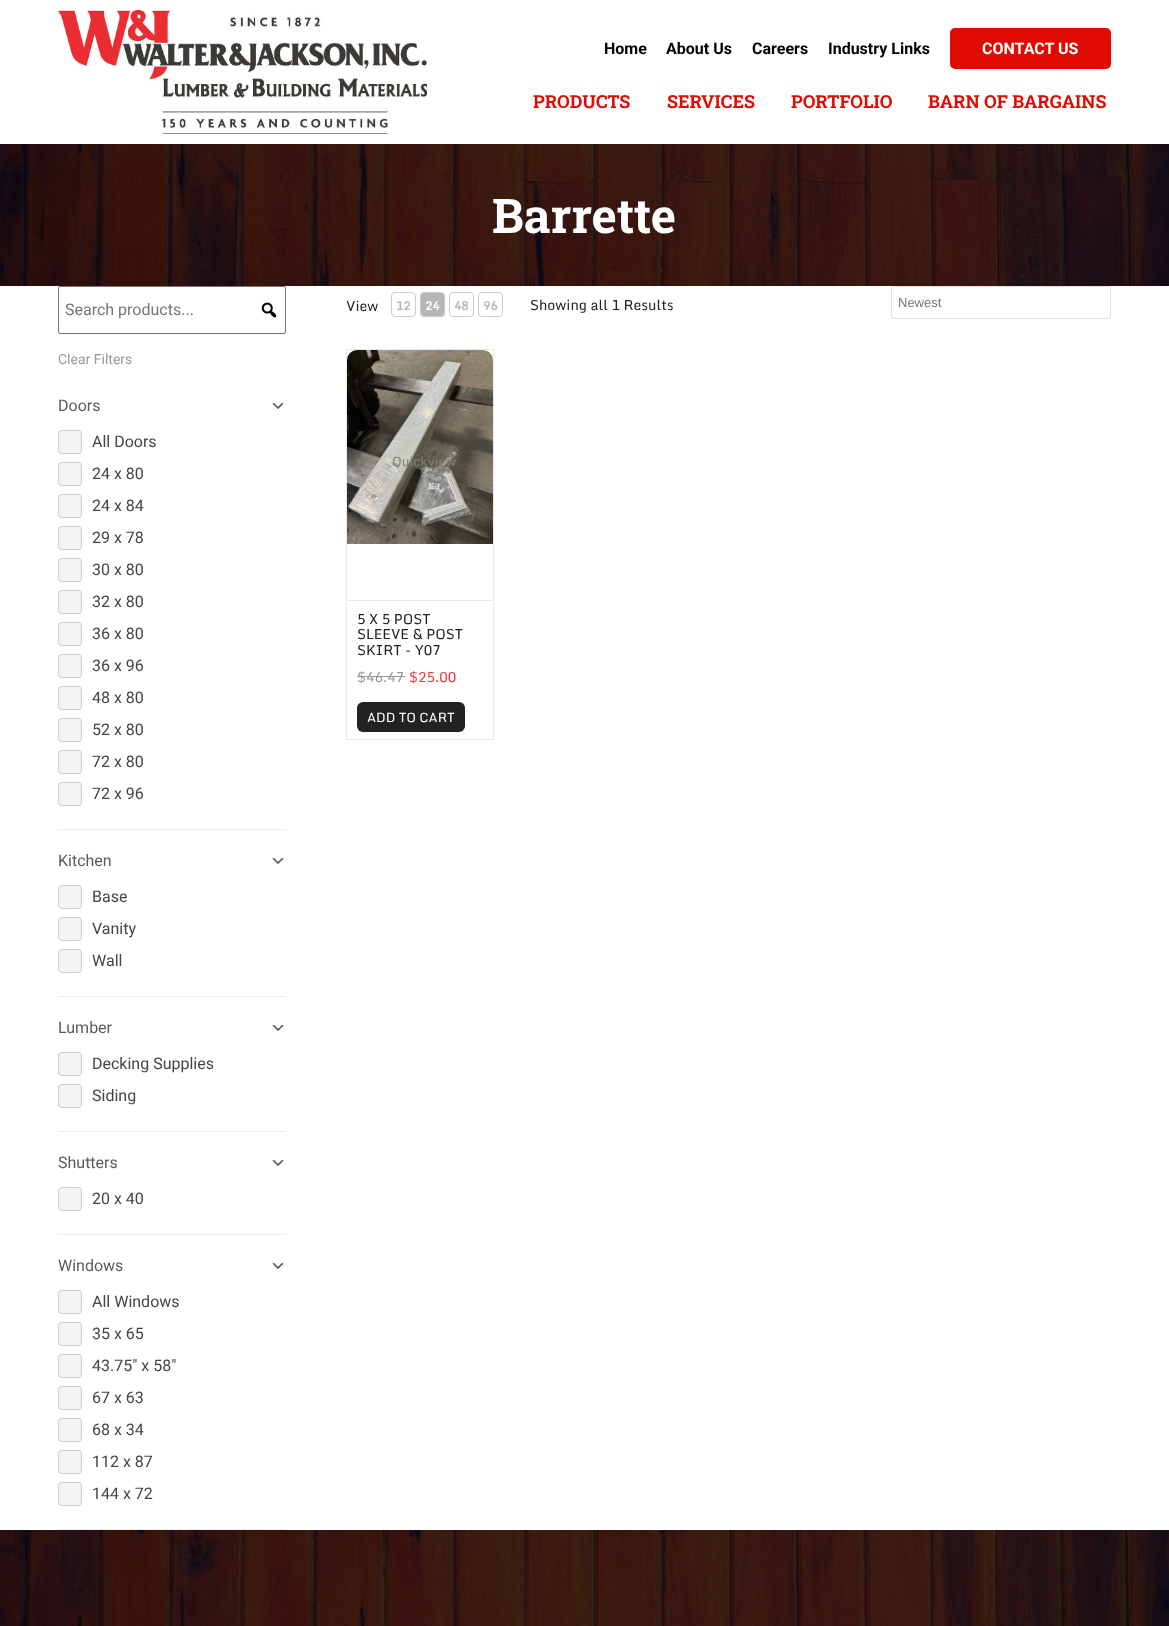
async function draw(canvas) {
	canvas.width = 1169;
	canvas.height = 1626;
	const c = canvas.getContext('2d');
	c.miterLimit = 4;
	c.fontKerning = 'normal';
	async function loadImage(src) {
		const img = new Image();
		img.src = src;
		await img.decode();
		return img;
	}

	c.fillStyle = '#fff';
	c.fillRect(0, 0, 1169, 1626);
	c.drawImage(await loadImage('img1.png'), 58, 10, 369, 124);
	c.font = 'bold 16px Roboto';
	c.fillStyle = '#000';
	for (const [text, x, y] of [
		['Home', 604, 54],
		['About Us', 666, 54],
		['Careers', 752, 54],
		['Industry Links', 828, 54],
	]) {
		c.fillText(text, x, y);
	}
	c.fillStyle = '#e00b00';
	c.beginPath();
	c.roundRect(951, 29, 159, 39, 4);
	c.fill();
	c.strokeStyle = '#e00b00';
	c.lineWidth = 2;
	c.stroke();
	c.fillStyle = '#fff';
	c.fillText('CONTACT US', 982, 54);
	c.font = 'bold 18px Roboto Slab';
	c.fillStyle = '#e00b00';
	for (const [text, x, y] of [
		['PRODUCTS', 533, 108],
		['SERVICES', 667, 108],
		['PORTFOLIO', 791, 108],
		['BARN OF BARGAINS', 928, 108],
	]) {
		c.fillText(text, x, y);
	}
	c.drawImage(await loadImage('img2.png'), 0, 144, 1169, 142);
	c.font = 'bold 48px Roboto Slab';
	c.fillStyle = '#fff';
	c.fillText('Barrette', 492, 233);
	c.beginPath();
	c.roundRect(58.5, 286.5, 227, 47, 1.5);
	c.strokeStyle = '#767676';
	c.lineWidth = 1;
	c.stroke();
	c.font = '16px Roboto';
	c.fillStyle = '#757575';
	c.fillText('Search products...', 65, 315);
	c.drawImage(await loadImage('img3.png'), 261, 302, 16, 16);
	c.font = '14px Roboto';
	c.fillStyle = '#999';
	c.fillText('Clear Filters', 58, 364);
	c.fillStyle = '#ededed';
	c.fillRect(58, 829, 228, 1);
	c.font = '16px Roboto';
	c.fillStyle = '#5b5b5b';
	c.fillText('Doors', 58, 411);
	c.drawImage(await loadImage('img4.png'), 272, 402, 12, 7);
	c.fillStyle = '#f4f4f4';
	c.beginPath();
	c.roundRect(58.5, 430.5, 23, 23, 3.5);
	c.fill();
	c.strokeStyle = '#ccc';
	c.stroke();
	c.fillStyle = '#444';
	c.fillText('All Doors', 92, 447);
	c.fillStyle = '#f4f4f4';
	c.beginPath();
	c.roundRect(58.5, 462.5, 23, 23, 3.5);
	c.fill();
	c.stroke();
	c.fillStyle = '#444';
	c.fillText('24 x 80', 92, 479);
	c.fillStyle = '#f4f4f4';
	c.beginPath();
	c.roundRect(58.5, 494.5, 23, 23, 3.5);
	c.fill();
	c.stroke();
	c.fillStyle = '#444';
	c.fillText('24 x 84', 92, 511);
	c.fillStyle = '#f4f4f4';
	c.beginPath();
	c.roundRect(58.5, 526.5, 23, 23, 3.5);
	c.fill();
	c.stroke();
	c.fillStyle = '#444';
	c.fillText('29 x 78', 92, 543);
	c.fillStyle = '#f4f4f4';
	c.beginPath();
	c.roundRect(58.5, 558.5, 23, 23, 3.5);
	c.fill();
	c.stroke();
	c.fillStyle = '#444';
	c.fillText('30 x 80', 92, 575);
	c.fillStyle = '#f4f4f4';
	c.beginPath();
	c.roundRect(58.5, 590.5, 23, 23, 3.5);
	c.fill();
	c.stroke();
	c.fillStyle = '#444';
	c.fillText('32 x 80', 92, 607);
	c.fillStyle = '#f4f4f4';
	c.beginPath();
	c.roundRect(58.5, 622.5, 23, 23, 3.5);
	c.fill();
	c.stroke();
	c.fillStyle = '#444';
	c.fillText('36 x 80', 92, 639);
	c.fillStyle = '#f4f4f4';
	c.beginPath();
	c.roundRect(58.5, 654.5, 23, 23, 3.5);
	c.fill();
	c.stroke();
	c.fillStyle = '#444';
	c.fillText('36 x 96', 92, 671);
	c.fillStyle = '#f4f4f4';
	c.beginPath();
	c.roundRect(58.5, 686.5, 23, 23, 3.5);
	c.fill();
	c.stroke();
	c.fillStyle = '#444';
	c.fillText('48 x 80', 92, 703);
	c.fillStyle = '#f4f4f4';
	c.beginPath();
	c.roundRect(58.5, 718.5, 23, 23, 3.5);
	c.fill();
	c.stroke();
	c.fillStyle = '#444';
	c.fillText('52 x 80', 92, 735);
	c.fillStyle = '#f4f4f4';
	c.beginPath();
	c.roundRect(58.5, 750.5, 23, 23, 3.5);
	c.fill();
	c.stroke();
	c.fillStyle = '#444';
	c.fillText('72 x 80', 92, 767);
	c.fillStyle = '#f4f4f4';
	c.beginPath();
	c.roundRect(58.5, 782.5, 23, 23, 3.5);
	c.fill();
	c.stroke();
	c.fillStyle = '#444';
	c.fillText('72 x 96', 92, 799);
	c.fillStyle = '#ededed';
	c.fillRect(58, 996, 228, 1);
	c.fillStyle = '#5b5b5b';
	c.fillText('Kitchen', 58, 866);
	c.drawImage(await loadImage('img4.png'), 272, 857, 12, 7);
	c.fillStyle = '#f4f4f4';
	c.beginPath();
	c.roundRect(58.5, 885.5, 23, 23, 3.5);
	c.fill();
	c.stroke();
	c.fillStyle = '#444';
	c.fillText('Base', 92, 902);
	c.fillStyle = '#f4f4f4';
	c.beginPath();
	c.roundRect(58.5, 917.5, 23, 23, 3.5);
	c.fill();
	c.stroke();
	c.fillStyle = '#444';
	c.fillText('Vanity', 92, 934);
	c.fillStyle = '#f4f4f4';
	c.beginPath();
	c.roundRect(58.5, 949.5, 23, 23, 3.5);
	c.fill();
	c.stroke();
	c.fillStyle = '#444';
	c.fillText('Wall', 92, 966);
	c.fillStyle = '#ededed';
	c.fillRect(58, 1131, 228, 1);
	c.fillStyle = '#5b5b5b';
	c.fillText('Lumber', 58, 1033);
	c.drawImage(await loadImage('img4.png'), 272, 1024, 12, 7);
	c.fillStyle = '#f4f4f4';
	c.beginPath();
	c.roundRect(58.5, 1052.5, 23, 23, 3.5);
	c.fill();
	c.stroke();
	c.fillStyle = '#444';
	c.fillText('Decking Supplies', 92, 1069);
	c.fillStyle = '#f4f4f4';
	c.beginPath();
	c.roundRect(58.5, 1084.5, 23, 23, 3.5);
	c.fill();
	c.stroke();
	c.fillStyle = '#444';
	c.fillText('Siding', 92, 1101);
	c.fillStyle = '#ededed';
	c.fillRect(58, 1234, 228, 1);
	c.fillStyle = '#5b5b5b';
	c.fillText('Shutters', 58, 1168);
	c.drawImage(await loadImage('img4.png'), 272, 1159, 12, 7);
	c.fillStyle = '#f4f4f4';
	c.beginPath();
	c.roundRect(58.5, 1187.5, 23, 23, 3.5);
	c.fill();
	c.stroke();
	c.fillStyle = '#444';
	c.fillText('20 x 40', 92, 1204);
	c.fillStyle = '#ededed';
	c.fillRect(58, 1529, 228, 1);
	c.fillStyle = '#5b5b5b';
	c.fillText('Windows', 58, 1271);
	c.drawImage(await loadImage('img4.png'), 272, 1262, 12, 7);
	c.fillStyle = '#f4f4f4';
	c.beginPath();
	c.roundRect(58.5, 1290.5, 23, 23, 3.5);
	c.fill();
	c.stroke();
	c.fillStyle = '#444';
	c.fillText('All Windows', 92, 1307);
	c.fillStyle = '#f4f4f4';
	c.beginPath();
	c.roundRect(58.5, 1322.5, 23, 23, 3.5);
	c.fill();
	c.stroke();
	c.fillStyle = '#444';
	c.fillText('35 x 65', 92, 1339);
	c.fillStyle = '#f4f4f4';
	c.beginPath();
	c.roundRect(58.5, 1354.5, 23, 23, 3.5);
	c.fill();
	c.stroke();
	c.fillStyle = '#444';
	c.fillText('43.75" x 58"', 92, 1371);
	c.fillStyle = '#f4f4f4';
	c.beginPath();
	c.roundRect(58.5, 1386.5, 23, 23, 3.5);
	c.fill();
	c.stroke();
	c.fillStyle = '#444';
	c.fillText('67 x 63', 92, 1403);
	c.fillStyle = '#f4f4f4';
	c.beginPath();
	c.roundRect(58.5, 1418.5, 23, 23, 3.5);
	c.fill();
	c.stroke();
	c.fillStyle = '#444';
	c.fillText('68 x 34', 92, 1435);
	c.fillStyle = '#f4f4f4';
	c.beginPath();
	c.roundRect(58.5, 1450.5, 23, 23, 3.5);
	c.fill();
	c.stroke();
	c.fillStyle = '#444';
	c.fillText('112 x 87', 92, 1467);
	c.fillStyle = '#f4f4f4';
	c.beginPath();
	c.roundRect(58.5, 1482.5, 23, 23, 3.5);
	c.fill();
	c.stroke();
	c.fillStyle = '#444';
	c.fillText('144 x 72', 92, 1499);
	c.font = '14px Monda';
	c.fillStyle = '#222';
	c.fillText('View', 346, 311);
	c.beginPath();
	c.roundRect(391.5, 292.5, 24, 24, 3.5);
	c.stroke();
	c.font = 'bold 12px Monda';
	c.fillStyle = '#b6b6b6';
	c.fillText('12', 396, 310);
	c.beginPath();
	c.roundRect(420.5, 292.5, 24, 24, 3.5);
	c.fill();
	c.stroke();
	c.fillStyle = '#fff';
	c.fillText('24', 425, 310);
	c.beginPath();
	c.roundRect(449.5, 292.5, 24, 24, 3.5);
	c.stroke();
	c.fillStyle = '#b6b6b6';
	c.fillText('48', 454, 310);
	c.beginPath();
	c.roundRect(478.5, 292.5, 24, 24, 3.5);
	c.stroke();
	c.fillText('96', 483, 310);
	c.font = '14px Monda';
	c.fillStyle = '#222';
	c.fillText('Showing all 1 Results', 530, 310);
	c.beginPath();
	c.roundRect(891.5, 286.5, 219, 32, 1.5);
	c.strokeStyle = '#e1e1e1';
	c.stroke();
	c.font = '13px Liberation Sans';
	c.fillStyle = '#757575';
	c.fillText('Newest', 898, 307);
	c.beginPath();
	c.roundRect(346.5, 349.5, 147, 390, [0.5, 0.5, 0, 0]);
	c.strokeStyle = '#eaeaea';
	c.stroke();
	c.drawImage(await loadImage('img5.png'), 347, 350, 146, 194);
	c.font = '13px Monda';
	c.fillStyle = '#848277';
	c.fillText('Quickview', 392, 466);
	c.fillStyle = '#eaeaea';
	c.fillRect(347, 600, 146, 1);
	c.font = '14px Monda';
	c.fillStyle = '#222';
	for (const [text, x, y] of [
		['5 X 5 POST', 357, 624],
		['SLEEVE & POST', 357, 639],
		['SKIRT - Y07', 357, 655],
	]) {
		c.fillText(text, x, y);
	}
	c.fillStyle = '#999';
	c.fillText('$46.47', 357, 682);
	c.fillRect(357, 676, 48, 1);
	c.fillStyle = '#ee3b3b';
	c.fillText('$25.00', 409, 682);
	c.fillStyle = '#222';
	c.beginPath();
	c.roundRect(357, 702, 108, 30, 6);
	c.fill();
	c.font = '13px Monda';
	c.fillStyle = '#fff';
	c.fillText('ADD TO CART', 367, 722);
	c.drawImage(await loadImage('img6.png'), 0, 1530, 1169, 96);
}

draw(document.querySelector('canvas'));
